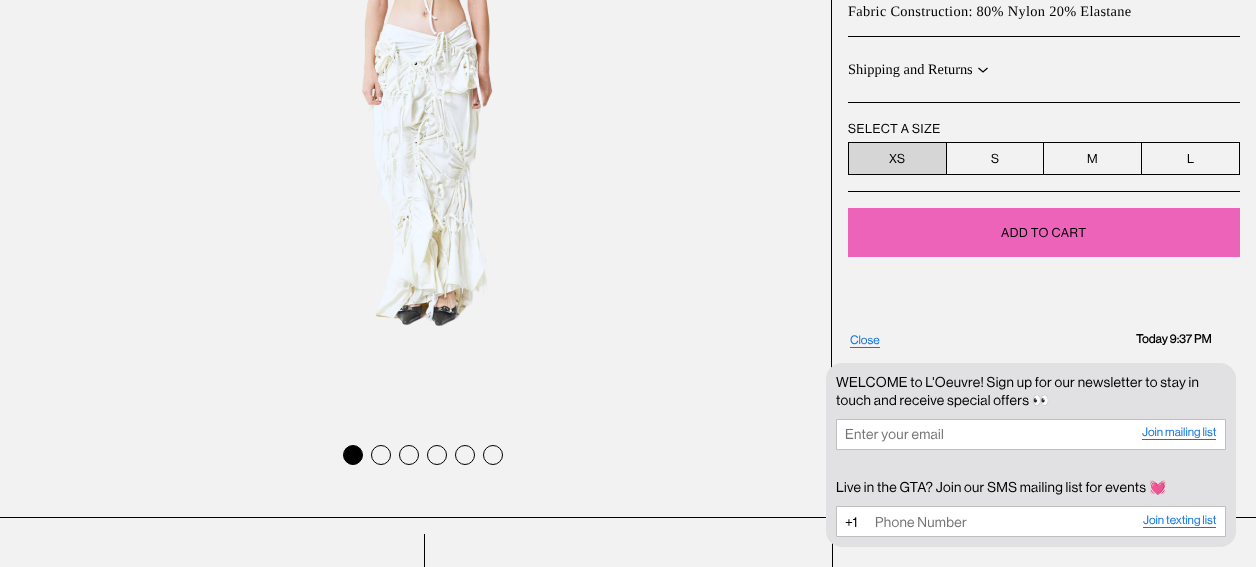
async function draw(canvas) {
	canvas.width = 1256;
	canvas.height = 567;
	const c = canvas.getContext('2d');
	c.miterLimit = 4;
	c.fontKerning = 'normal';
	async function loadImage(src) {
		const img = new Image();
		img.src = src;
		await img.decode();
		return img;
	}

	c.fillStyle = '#f2f2f2';
	c.fillRect(0, 0, 1256, 567);
	c.fillStyle = '#010101';
	c.fillRect(831, 0, 1, 368);
	c.drawImage(await loadImage('img1.png'), 362, 0, 131, 326);
	c.beginPath();
	c.arc(353, 455, 9.5, 0, 2 * Math.PI);
	c.fill();
	c.strokeStyle = '#010101';
	c.stroke();
	c.beginPath();
	c.arc(381, 455, 9.5, 0, 2 * Math.PI);
	c.stroke();
	c.beginPath();
	c.arc(409, 455, 9.5, 0, 2 * Math.PI);
	c.stroke();
	c.beginPath();
	c.arc(437, 455, 9.5, 0, 2 * Math.PI);
	c.stroke();
	c.beginPath();
	c.arc(465, 455, 9.5, 0, 2 * Math.PI);
	c.stroke();
	c.beginPath();
	c.arc(493, 455, 9.5, 0, 2 * Math.PI);
	c.stroke();
	c.fillRect(848, 36, 392, 1);
	c.letterSpacing = '0.3px';
	c.font = '14.4px Liberation Serif';
	c.fillText('Fabric Construction: 80% Nylon 20% Elastane', 848, 16);
	c.fillRect(848, 102, 392, 1);
	c.letterSpacing = '0px';
	c.fillText('Shipping and Returns', 848, 74);
	c.beginPath();
	c.moveTo(978.5, 68);
	c.lineTo(983, 72);
	c.lineTo(987.5, 68);
	c.strokeStyle = '#000';
	c.lineWidth = 1.2;
	c.stroke();
	c.fillRect(848, 191, 392, 1);
	c.letterSpacing = '0.5px';
	c.font = '12.75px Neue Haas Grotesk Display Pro';
	c.fillText('SELECT A SIZE', 848, 133);
	for (const [x, y, w, h, color] of [
		[947, 142, 293, 1, '#010101'],
		[848, 174, 392, 1, '#010101'],
		[848, 142, 1, 33, '#010101'],
		[849, 143, 97, 31, '#d6d6d6'],
		[849, 142, 98, 1, '#000'],
		[946, 142, 1, 32, '#010101'],
	]) {
		c.fillStyle = color;
		c.fillRect(x, y, w, h);
	}
	c.fillText('XS', 889, 163);
	c.fillRect(1043, 142, 1, 32);
	c.fillText('S', 991, 163);
	c.fillRect(1141, 142, 1, 32);
	c.fillText('M', 1087, 163);
	c.fillRect(1239, 142, 1, 32);
	c.fillText('L', 1187, 163);
	c.fillStyle = '#ed63ba';
	c.fillRect(848, 208, 392, 49);
	c.fillStyle = '#010101';
	c.fillText('ADD TO CART', 1001, 237);
	for (const [x, y, w, h, color] of [
		[0, 517, 1256, 1, '#010101'],
		[424, 534, 1, 33, '#010101'],
		[832, 543, 1, 24, '#010101'],
	]) {
		c.fillStyle = color;
		c.fillRect(x, y, w, h);
	}
	c.letterSpacing = '0px';
	c.font = '12px Neue Haas Grotesk Display Pro';
	c.fillStyle = '#1175e1';
	c.fillText('Close', 850, 344);
	c.fillRect(850, 347, 30, 1);
	c.letterSpacing = '0.1px';
	c.font = 'bold 12px Neue Haas Grotesk Display Pro';
	c.fillStyle = '#010101';
	c.fillText('Today 9:37 PM', 1136, 343);
	c.fillStyle = '#e1e1e3';
	c.beginPath();
	c.roundRect(826, 363, 410, 184, 16);
	c.fill();
	c.letterSpacing = '0.28px';
	c.font = '14px Neue Haas Grotesk Display Pro';
	c.fillStyle = '#010101';
	c.fillText('WELCOME to L\'Oeuvre! Sign up for our newsletter to stay in', 836, 387);
	c.fillText('touch and receive special offers', 836, 405);
	c.font = '14px Noto Color Emoji';
	c.fillText('👀', 1032, 405);
	c.fillStyle = '#fff';
	c.beginPath();
	c.rect(836.5, 419.5, 389, 30);
	c.fill();
	c.strokeStyle = '#bfbfbf';
	c.lineWidth = 1;
	c.stroke();
	c.font = '14px Neue Haas Grotesk Display Pro';
	c.fillStyle = '#757575';
	c.fillText('Enter your email', 845, 439);
	c.fillStyle = '#1175e1';
	c.fillRect(1142, 439, 74, 1);
	c.letterSpacing = '0px';
	c.font = '12px Neue Haas Grotesk Display Pro';
	c.fillText('Join mailing list', 1142, 436);
	c.letterSpacing = '0.28px';
	c.font = '14px Neue Haas Grotesk Display Pro';
	c.fillStyle = '#010101';
	c.fillText('Live in the GTA? Join our SMS mailing list for events', 836, 492);
	c.font = '14px Noto Color Emoji';
	c.fillText('💓', 1149, 492);
	c.fillStyle = '#fff';
	c.beginPath();
	c.rect(836.5, 506.5, 389, 30);
	c.fill();
	c.stroke();
	c.letterSpacing = '0px';
	c.font = '14px Neue Haas Grotesk Display Pro';
	c.fillStyle = '#010101';
	c.fillText('+1', 845, 527);
	c.letterSpacing = '0.28px';
	c.fillStyle = '#757575';
	c.fillText('Phone Number', 875, 527);
	c.fillStyle = '#1175e1';
	c.fillRect(1143, 527, 73, 1);
	c.letterSpacing = '0px';
	c.font = '12px Neue Haas Grotesk Display Pro';
	c.fillText('Join texting list', 1143, 524);
}

draw(document.querySelector('canvas'));
